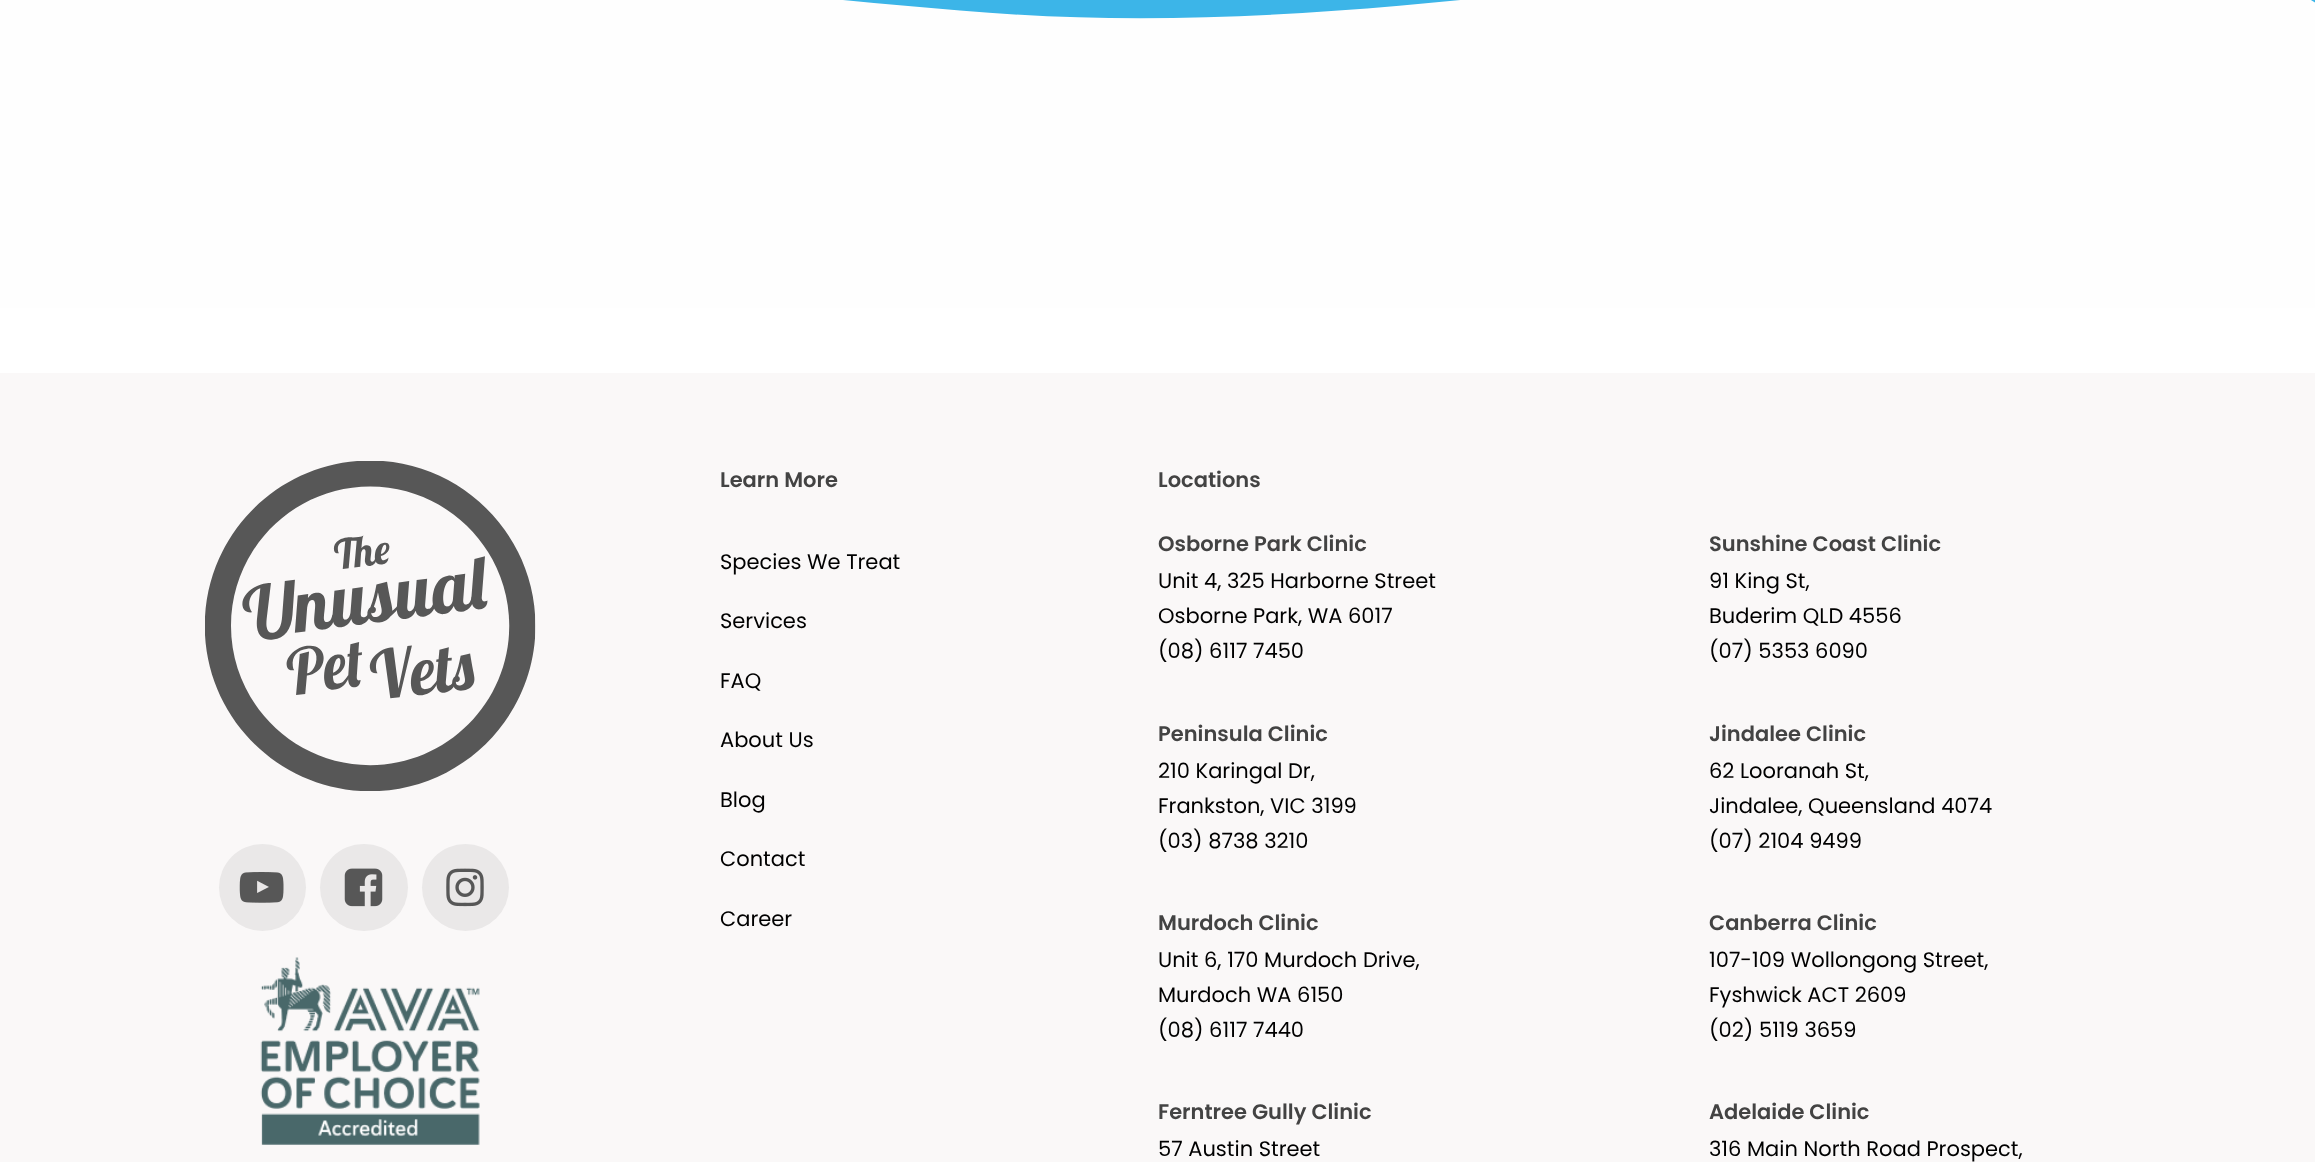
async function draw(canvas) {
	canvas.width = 2315;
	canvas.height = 1162;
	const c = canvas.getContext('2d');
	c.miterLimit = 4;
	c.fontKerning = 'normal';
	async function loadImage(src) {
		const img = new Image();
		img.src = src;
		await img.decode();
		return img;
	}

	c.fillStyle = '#fff';
	c.fillRect(0, 0, 2315, 1162);
	c.fillStyle = '#3cb5e8';
	c.fillRect(843, 0, 1472, 19);
	c.drawImage(await loadImage('img1.png'), 0, 0, 2315, 308);
	c.fillStyle = '#faf8f8';
	c.fillRect(0, 373, 2315, 789);
	c.drawImage(await loadImage('img2.png'), 205, 461, 331, 330);
	c.fillStyle = '#eae8e8';
	c.beginPath();
	c.arc(262.5, 887.5, 43.5, 0, 2 * Math.PI);
	c.fill();
	c.drawImage(await loadImage('img3.png'), 239, 872, 45, 31);
	c.beginPath();
	c.roundRect(320, 844, 88, 87, 43.5);
	c.fill();
	c.drawImage(await loadImage('img4.png'), 344, 868, 39, 39);
	c.beginPath();
	c.arc(465.5, 887.5, 43.5, 0, 2 * Math.PI);
	c.fill();
	c.drawImage(await loadImage('img5.png'), 446, 868, 38, 39);
	c.drawImage(await loadImage('img6.png'), 260, 957, 220, 188);
	c.font = '600 21px Poppins';
	c.fillStyle = '#434343';
	c.fillText('Learn More', 720, 487);
	c.font = '21px Poppins';
	c.fillStyle = '#000';
	for (const [text, x, y] of [
		['Species We Treat', 720, 569],
		['Services', 720, 628],
		['FAQ', 720, 688],
		['About Us', 720, 747],
		['Blog', 720, 807],
		['Contact', 720, 866],
		['Career', 720, 926],
	]) {
		c.fillText(text, x, y);
	}
	c.font = '600 21px Poppins';
	c.fillStyle = '#434343';
	c.fillText('Locations', 1158, 487);
	c.fillText('Osborne Park Clinic', 1158, 551);
	c.font = '21px Poppins';
	c.fillStyle = '#000';
	for (const [text, x, y] of [
		['Unit 4, 325 Harborne Street', 1158, 588],
		['Osborne Park, WA 6017', 1158, 623],
		['(08) 6117 7450', 1158, 658],
	]) {
		c.fillText(text, x, y);
	}
	c.font = '600 21px Poppins';
	c.fillStyle = '#434343';
	c.fillText('Sunshine Coast Clinic', 1709, 551);
	c.font = '21px Poppins';
	c.fillStyle = '#000';
	for (const [text, x, y] of [
		['91 King St,', 1709, 588],
		['Buderim QLD 4556', 1709, 623],
		['(07) 5353 6090', 1709, 658],
	]) {
		c.fillText(text, x, y);
	}
	c.font = '600 21px Poppins';
	c.fillStyle = '#434343';
	c.fillText('Peninsula Clinic', 1158, 741);
	c.font = '21px Poppins';
	c.fillStyle = '#000';
	for (const [text, x, y] of [
		['210 Karingal Dr,', 1158, 778],
		['Frankston, VIC 3199', 1158, 813],
		['(03) 8738 3210', 1158, 848],
	]) {
		c.fillText(text, x, y);
	}
	c.font = '600 21px Poppins';
	c.fillStyle = '#434343';
	c.fillText('Jindalee Clinic', 1709, 741);
	c.font = '21px Poppins';
	c.fillStyle = '#000';
	for (const [text, x, y] of [
		['62 Looranah St,', 1709, 778],
		['Jindalee, Queensland 4074', 1709, 813],
		['(07) 2104 9499', 1709, 848],
	]) {
		c.fillText(text, x, y);
	}
	c.font = '600 21px Poppins';
	c.fillStyle = '#434343';
	c.fillText('Murdoch Clinic', 1158, 930);
	c.font = '21px Poppins';
	c.fillStyle = '#000';
	for (const [text, x, y] of [
		['Unit 6, 170 Murdoch Drive,', 1158, 967],
		['Murdoch WA 6150', 1158, 1002],
		['(08) 6117 7440', 1158, 1037],
	]) {
		c.fillText(text, x, y);
	}
	c.font = '600 21px Poppins';
	c.fillStyle = '#434343';
	c.fillText('Canberra Clinic', 1709, 930);
	c.font = '21px Poppins';
	c.fillStyle = '#000';
	for (const [text, x, y] of [
		['107-109 Wollongong Street,', 1709, 967],
		['Fyshwick ACT 2609', 1709, 1002],
		['(02) 5119 3659', 1709, 1037],
	]) {
		c.fillText(text, x, y);
	}
	c.font = '600 21px Poppins';
	c.fillStyle = '#434343';
	c.fillText('Ferntree Gully Clinic', 1158, 1119);
	c.font = '21px Poppins';
	c.fillStyle = '#000';
	c.fillText('57 Austin Street', 1158, 1156);
	c.font = '600 21px Poppins';
	c.fillStyle = '#434343';
	c.fillText('Adelaide Clinic', 1709, 1119);
	c.font = '21px Poppins';
	c.fillStyle = '#000';
	c.fillText('316 Main North Road Prospect,', 1709, 1156);
}

draw(document.querySelector('canvas'));
